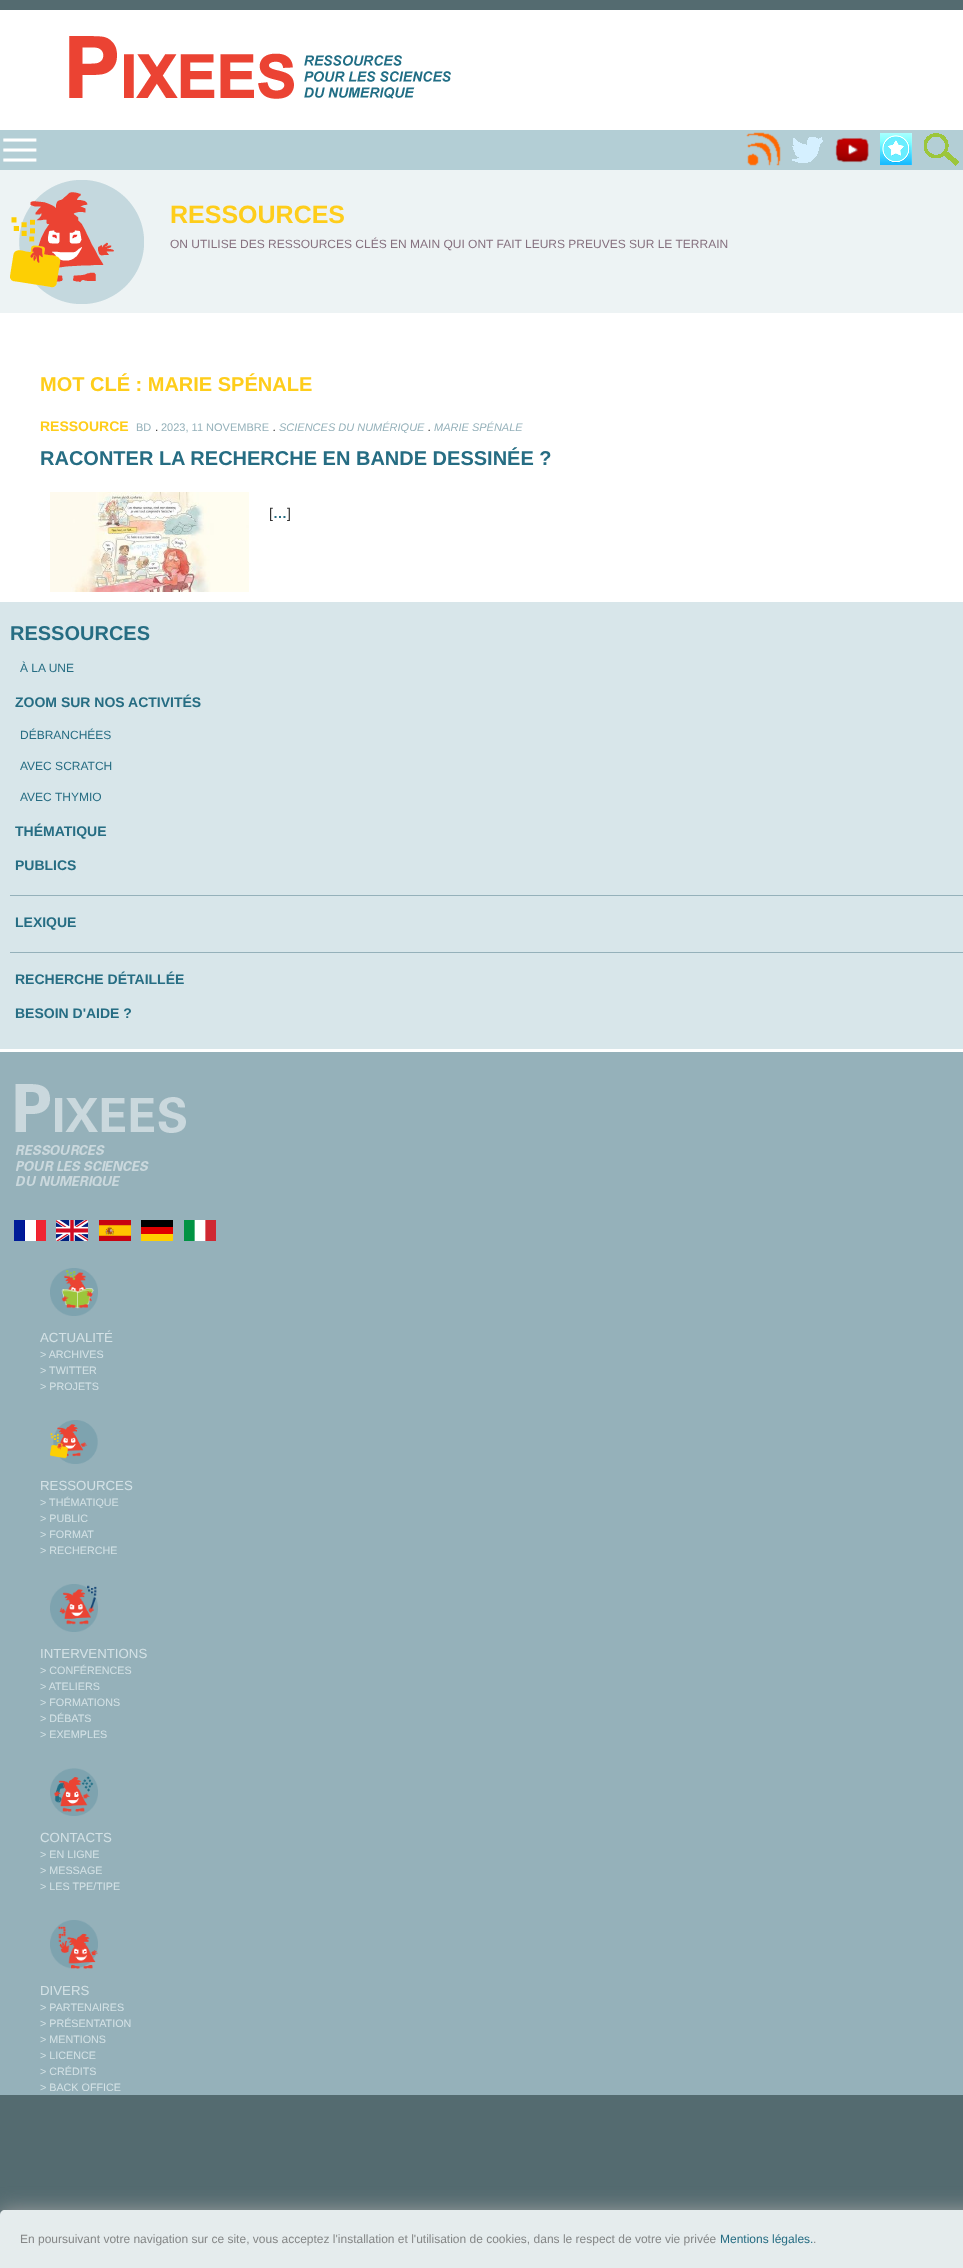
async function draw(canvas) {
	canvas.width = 963;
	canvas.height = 2268;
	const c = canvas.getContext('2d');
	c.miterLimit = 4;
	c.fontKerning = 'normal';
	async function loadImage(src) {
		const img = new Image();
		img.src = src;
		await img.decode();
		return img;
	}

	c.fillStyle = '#546b70';
	c.fillRect(0, 0, 963, 2268);
	c.fillStyle = '#fff';
	c.fillRect(0, 10, 963, 120);
	c.drawImage(await loadImage('img1.png'), 69, 36, 382, 63);
	c.fillStyle = '#b3ced5';
	c.fillRect(0, 130, 963, 40);
	c.drawImage(await loadImage('img2.png'), 3, 138, 34, 24);
	c.drawImage(await loadImage('img3.png'), 746, 132, 35, 34);
	c.drawImage(await loadImage('img4.png'), 792, 137, 31, 26);
	c.drawImage(await loadImage('img5.png'), 835, 137, 34, 26);
	c.drawImage(await loadImage('img6.png'), 880, 133, 32, 32);
	c.drawImage(await loadImage('img7.png'), 924, 133, 35, 33);
	c.fillStyle = '#edf3f4';
	c.fillRect(0, 170, 963, 143);
	c.drawImage(await loadImage('img8.png'), 10, 180, 134, 124);
	c.font = 'bold 25px Liberation Sans';
	c.fillStyle = '#fecd1b';
	c.fillText('RESSOURCES', 170, 223);
	c.font = '12px Liberation Sans';
	c.fillStyle = '#86717f';
	c.fillText('ON UTILISE DES RESSOURCES CLÉS EN MAIN QUI ONT FAIT LEURS PREUVES SUR LE TERRAIN', 170, 248);
	c.fillStyle = '#fff';
	c.fillRect(0, 313, 963, 289);
	c.font = 'bold 20px Liberation Sans';
	c.fillStyle = '#fecd1b';
	c.fillText('MOT CLÉ : MARIE SPÉNALE', 40, 391);
	c.font = 'bold 14px Liberation Sans';
	c.fillText('RESSOURCE', 40, 431);
	c.font = '11px Liberation Sans';
	c.fillStyle = '#95b1ba';
	c.fillText('BD', 136, 431);
	c.font = '12px Liberation Sans';
	c.fillStyle = '#323232';
	c.fillText('.', 155, 431);
	c.font = '11px Liberation Sans';
	c.fillStyle = '#95b1ba';
	c.fillText('2023, 11 NOVEMBRE', 161, 431);
	c.font = 'italic 12px Liberation Sans';
	c.fillStyle = '#323232';
	c.fillText('.', 273, 431);
	c.font = 'italic 11px Liberation Sans';
	c.fillStyle = '#95b1ba';
	c.fillText('SCIENCES DU NUMÉRIQUE', 279, 431);
	c.font = 'italic 12px Liberation Sans';
	c.fillStyle = '#323232';
	c.fillText('.', 428, 431);
	c.font = 'italic 11px Liberation Sans';
	c.fillStyle = '#95b1ba';
	c.fillText('MARIE SPÉNALE', 434, 431);
	c.font = 'bold 20px Liberation Sans';
	c.fillStyle = '#266d83';
	c.fillText('RACONTER LA RECHERCHE EN BANDE DESSINÉE ?', 40, 465);
	c.drawImage(await loadImage('img9.png'), 50, 492, 199, 100);
	c.font = '14px Liberation Sans';
	c.fillStyle = '#323232';
	c.fillText('[', 269, 518);
	c.font = 'bold 14px Liberation Sans';
	c.fillStyle = '#266d83';
	c.fillText('…', 273, 518);
	c.font = '14px Liberation Sans';
	c.fillStyle = '#323232';
	c.fillText(']', 287, 518);
	c.fillStyle = '#d8e6ea';
	c.fillRect(0, 602, 963, 447);
	c.font = 'bold 20px Liberation Sans';
	c.fillStyle = '#266d83';
	c.fillText('RESSOURCES', 10, 640);
	c.font = '12px Liberation Sans';
	c.fillText('À LA UNE', 20, 672);
	c.font = 'bold 14px Liberation Sans';
	c.fillText('ZOOM SUR NOS ACTIVITÉS', 15, 707);
	c.font = '12px Liberation Sans';
	for (const [text, x, y] of [
		['DÉBRANCHÉES', 20, 739],
		['AVEC SCRATCH', 20, 770],
		['AVEC THYMIO', 20, 801],
	]) {
		c.fillText(text, x, y);
	}
	c.font = 'bold 14px Liberation Sans';
	c.fillText('THÉMATIQUE', 15, 836);
	c.fillText('PUBLICS', 15, 870);
	c.fillStyle = '#95b1ba';
	c.fillRect(10, 895, 953, 1);
	c.fillStyle = '#266d83';
	c.fillText('LEXIQUE', 15, 927);
	c.fillStyle = '#95b1ba';
	c.fillRect(10, 952, 953, 1);
	c.fillStyle = '#266d83';
	c.fillText('RECHERCHE DÉTAILLÉE', 15, 984);
	c.fillText('BESOIN D\'AIDE ?', 15, 1018);
	c.fillStyle = '#fff';
	c.fillRect(0, 1049, 963, 3);
	c.fillStyle = '#95b1ba';
	c.fillRect(0, 1052, 963, 1043);
	c.drawImage(await loadImage('img10.png'), 15, 1084, 171, 102);
	c.drawImage(await loadImage('img11.png'), 14, 1220, 32, 21);
	c.drawImage(await loadImage('img12.png'), 56, 1220, 32, 21);
	c.drawImage(await loadImage('img13.png'), 99, 1220, 32, 21);
	c.drawImage(await loadImage('img14.png'), 141, 1220, 32, 21);
	c.drawImage(await loadImage('img15.png'), 184, 1220, 32, 21);
	c.drawImage(await loadImage('img16.png'), 50, 1268, 48, 48);
	c.font = '13.25px Liberation Sans';
	c.fillStyle = '#d4e2e6';
	c.fillText('ACTUALITÉ', 40, 1342);
	c.font = '10.75px Liberation Sans';
	for (const [text, x, y] of [
		['> ARCHIVES', 40, 1358],
		['> TWITTER', 40, 1374],
		['> PROJETS', 40, 1390],
	]) {
		c.fillText(text, x, y);
	}
	c.drawImage(await loadImage('img17.png'), 50, 1420, 48, 44);
	c.font = '13.25px Liberation Sans';
	c.fillText('RESSOURCES', 40, 1490);
	c.font = '10.75px Liberation Sans';
	for (const [text, x, y] of [
		['> THÉMATIQUE', 40, 1506],
		['> PUBLIC', 40, 1522],
		['> FORMAT', 40, 1538],
		['> RECHERCHE', 40, 1554],
	]) {
		c.fillText(text, x, y);
	}
	c.drawImage(await loadImage('img18.png'), 50, 1584, 48, 48);
	c.font = '13.25px Liberation Sans';
	c.fillText('INTERVENTIONS', 40, 1658);
	c.font = '10.75px Liberation Sans';
	for (const [text, x, y] of [
		['> CONFÉRENCES', 40, 1674],
		['> ATELIERS', 40, 1690],
		['> FORMATIONS', 40, 1706],
		['> DÉBATS', 40, 1722],
		['> EXEMPLES', 40, 1738],
	]) {
		c.fillText(text, x, y);
	}
	c.drawImage(await loadImage('img19.png'), 50, 1768, 48, 48);
	c.font = '13.25px Liberation Sans';
	c.fillText('CONTACTS', 40, 1842);
	c.font = '10.75px Liberation Sans';
	for (const [text, x, y] of [
		['> EN LIGNE', 40, 1858],
		['> MESSAGE', 40, 1874],
		['> LES TPE/TIPE', 40, 1890],
	]) {
		c.fillText(text, x, y);
	}
	c.drawImage(await loadImage('img20.png'), 50, 1920, 48, 49);
	c.font = '13.25px Liberation Sans';
	c.fillText('DIVERS', 40, 1995);
	c.font = '10.75px Liberation Sans';
	for (const [text, x, y] of [
		['> PARTENAIRES', 40, 2011],
		['> PRÉSENTATION', 40, 2027],
		['> MENTIONS', 40, 2043],
		['> LICENCE', 40, 2059],
		['> CRÉDITS', 40, 2075],
		['> BACK OFFICE', 40, 2091],
	]) {
		c.fillText(text, x, y);
	}
	c.fillStyle = '#9d9e9f';
	c.filter = 'blur(10px)';
	c.beginPath();
	c.roundRect(0, 2210, 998, 58, 5);
	c.fill();
	c.filter = 'none';
	c.fillStyle = '#e5eced';
	c.beginPath();
	c.moveTo(5, 2210);
	c.lineTo(963, 2210);
	c.bezierCurveTo(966, 2210, 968, 2212, 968, 2215);
	c.lineTo(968, 2268);
	c.lineTo(0, 2268);
	c.lineTo(0, 2215);
	c.bezierCurveTo(0, 2212, 2, 2210, 5, 2210);
	c.closePath();
	c.fill();
	c.font = '12px Liberation Sans';
	c.fillStyle = '#858787';
	c.fillText('En poursuivant votre navigation sur ce site, vous acceptez l\'installation et l\'utilisation de cookies, dans le respect de votre vie privée', 20, 2243);
	c.fillStyle = '#266d83';
	c.fillText('Mentions légales.', 720, 2243);
	c.fillStyle = '#858787';
	c.fillText('.', 813, 2243);
}

draw(document.querySelector('canvas'));
